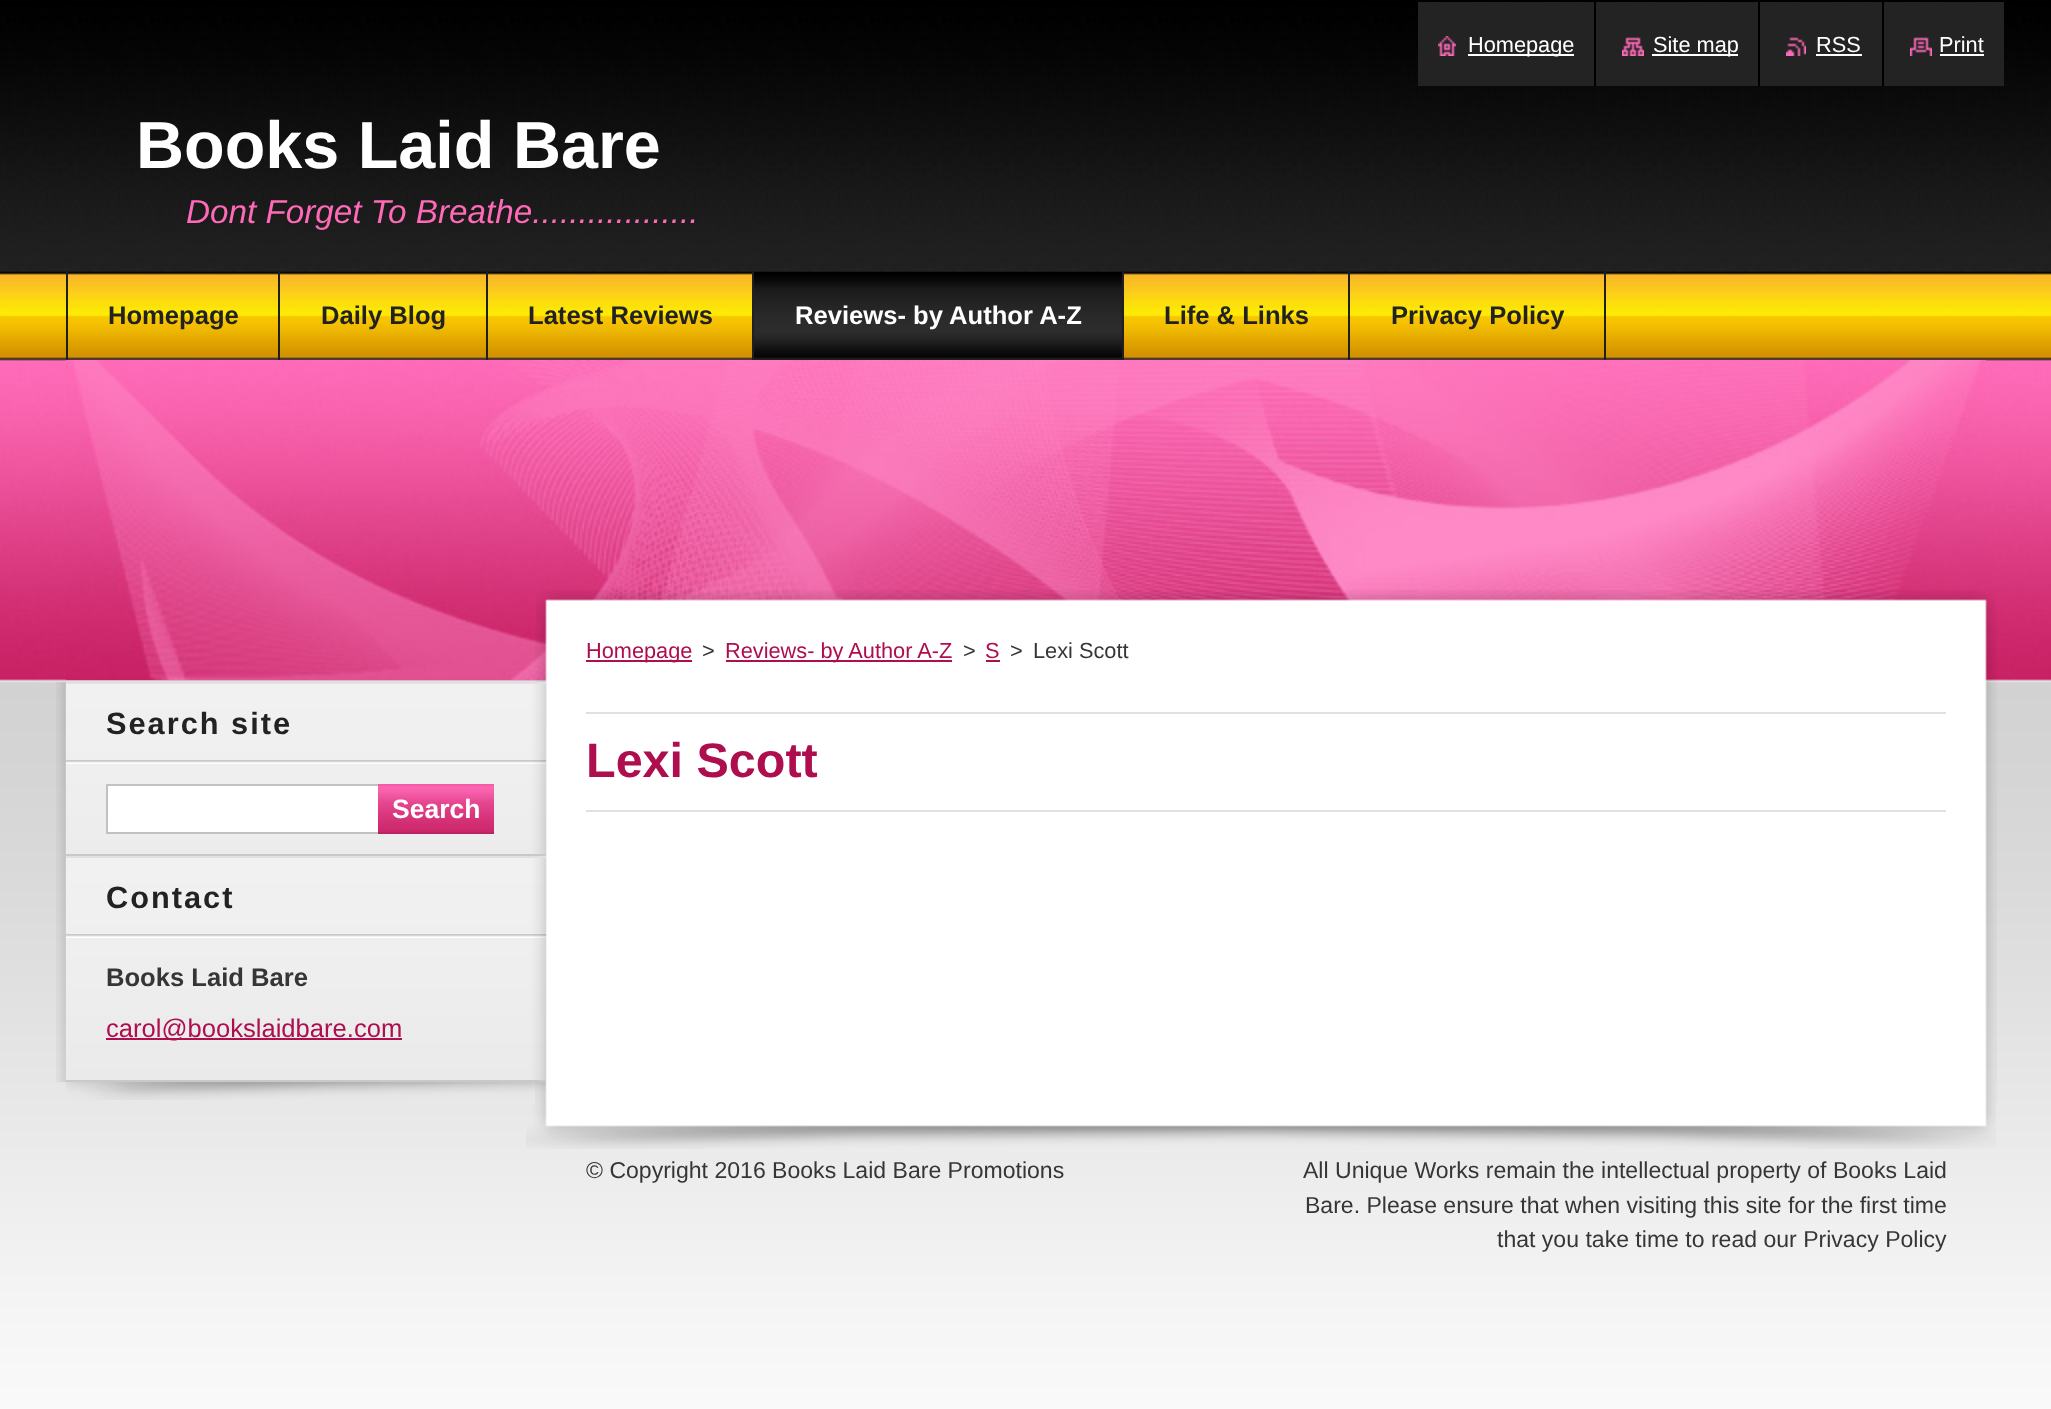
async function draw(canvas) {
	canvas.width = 2051;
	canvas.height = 1409;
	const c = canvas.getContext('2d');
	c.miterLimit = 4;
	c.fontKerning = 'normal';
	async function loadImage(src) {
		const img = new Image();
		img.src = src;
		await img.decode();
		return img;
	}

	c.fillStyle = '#fff';
	c.fillRect(0, 0, 2051, 1409);
	c.drawImage(await loadImage('img1.png'), 0, 0, 2051, 1409);
	c.fillStyle = '#232323';
	c.fillRect(1418, 2, 586, 84);
	c.drawImage(await loadImage('img2.png'), 1438, 36, 18, 20);
	c.fillStyle = '#fff';
	c.fillRect(1468, 54, 106, 2);
	c.font = '21.75px Liberation Sans';
	c.fillText('Homepage', 1468, 52);
	c.fillStyle = '#000';
	c.fillRect(1594, 2, 2, 84);
	c.drawImage(await loadImage('img3.png'), 1622, 37, 22, 19);
	c.fillStyle = '#fff';
	c.fillRect(1652, 54, 86, 2);
	c.fillText('Site map', 1653, 52);
	c.fillStyle = '#000';
	c.fillRect(1758, 2, 2, 84);
	c.drawImage(await loadImage('img4.png'), 1786, 37, 20, 19);
	c.fillStyle = '#fff';
	c.fillText('RSS', 1816, 52);
	c.fillStyle = '#000';
	c.fillRect(1882, 2, 2, 84);
	c.fillStyle = '#fff';
	c.fillRect(1816, 54, 46, 2);
	c.drawImage(await loadImage('img5.png'), 1910, 37, 22, 19);
	c.fillText('Print', 1939, 52);
	c.fillRect(1940, 54, 44, 2);
	c.font = 'bold 66.5px Liberation Sans';
	c.fillText('Books Laid Bare', 136, 168);
	c.font = 'italic 33.25px Liberation Sans';
	c.fillStyle = '#fe6ab7';
	c.fillText('Dont Forget To Breathe..................', 186, 223);
	c.drawImage(await loadImage('img6.png'), 66, 360, 1920, 320);
	c.fillStyle = '#1f1f1f';
	c.fillRect(278, 272, 2, 88);
	c.fillRect(66, 272, 2, 88);
	c.font = 'bold 25.6px Liberation Sans';
	c.fillStyle = '#222';
	c.fillText('Homepage', 108, 324);
	c.fillStyle = '#1f1f1f';
	c.fillRect(486, 272, 2, 88);
	c.fillStyle = '#222';
	c.fillText('Daily Blog', 321, 324);
	c.fillStyle = '#1f1f1f';
	c.fillRect(752, 272, 2, 88);
	c.fillStyle = '#222';
	c.fillText('Latest Reviews', 528, 324);
	c.fillStyle = '#1f1f1f';
	c.fillRect(1122, 272, 2, 88);
	c.drawImage(await loadImage('img7.png'), 754, 272, 368, 88);
	c.fillStyle = '#fff';
	c.fillText('Reviews- by Author A-Z', 795, 324);
	c.fillStyle = '#1f1f1f';
	c.fillRect(1348, 272, 2, 88);
	c.fillStyle = '#222';
	c.fillText('Life & Links', 1164, 324);
	c.fillStyle = '#1f1f1f';
	c.fillRect(1604, 272, 2, 88);
	c.fillStyle = '#222';
	c.fillText('Privacy Policy', 1391, 324);
	c.drawImage(await loadImage('img8.png'), 536, 590, 1460, 32);
	c.drawImage(await loadImage('img9.png'), 526, 1104, 1470, 45);
	c.drawImage(await loadImage('img10.png'), 535, 622, 1462, 482);
	c.drawImage(await loadImage('img11.png'), 66, 1082, 480, 18);
	c.drawImage(await loadImage('img12.png'), 56, 682, 10, 174);
	c.drawImage(await loadImage('img13.png'), 66, 684, 480, 170);
	c.fillStyle = '#c9c9c9';
	c.fillRect(66, 854, 480, 2);
	c.drawImage(await loadImage('img14.png'), 66, 760, 480, 4);
	c.fillStyle = '#e1e1e1';
	c.fillRect(66, 682, 480, 2);
	c.letterSpacing = '2px';
	c.font = 'bold 30.75px Liberation Sans';
	c.fillStyle = '#222';
	c.fillText('Search site', 106, 734);
	c.fillStyle = '#fff';
	c.beginPath();
	c.rect(107, 785, 272, 48);
	c.fill();
	c.strokeStyle = '#c1c1c1';
	c.lineWidth = 2;
	c.stroke();
	c.drawImage(await loadImage('img15.png'), 378, 784, 116, 50);
	c.letterSpacing = '0px';
	c.font = 'bold 26.5px Liberation Sans';
	c.fillText('Search', 392, 818);
	c.drawImage(await loadImage('img16.png'), 56, 856, 10, 226);
	c.drawImage(await loadImage('img17.png'), 66, 858, 480, 222);
	c.fillStyle = '#c9c9c9';
	c.fillRect(66, 1080, 480, 2);
	c.drawImage(await loadImage('img14.png'), 66, 934, 480, 4);
	c.fillStyle = '#e1e1e1';
	c.fillRect(66, 856, 480, 2);
	c.letterSpacing = '2px';
	c.font = 'bold 30.75px Liberation Sans';
	c.fillStyle = '#222';
	c.fillText('Contact', 106, 908);
	c.letterSpacing = '0px';
	c.font = 'bold 25.6px Liberation Sans';
	c.fillStyle = '#363636';
	c.fillText('Books Laid Bare', 106, 986);
	c.fillStyle = '#ae0d4e';
	c.fillRect(106, 1038, 296, 2);
	c.font = '25.6px Liberation Sans';
	c.fillText('carol@bookslaidbare.com', 106, 1037);
	c.fillRect(586, 660, 106, 2);
	c.font = '21.75px Liberation Sans';
	c.fillText('Homepage', 586, 658);
	c.fillStyle = '#363636';
	c.fillText('>', 702, 658);
	c.fillStyle = '#ae0d4e';
	c.fillRect(726, 660, 226, 2);
	c.fillText('Reviews- by Author A-Z', 725, 658);
	c.fillStyle = '#363636';
	c.fillText('>', 963, 658);
	c.fillStyle = '#ae0d4e';
	c.fillText('S', 985, 658);
	c.fillRect(986, 660, 14, 2);
	c.fillStyle = '#363636';
	c.fillText('>', 1010, 658);
	c.fillText('Lexi Scott', 1033, 658);
	c.fillStyle = '#e1e1e1';
	c.fillRect(586, 712, 1360, 2);
	c.fillRect(586, 810, 1360, 2);
	c.font = 'bold 48.5px Liberation Sans';
	c.fillStyle = '#ae0d4e';
	c.fillText('Lexi Scott', 586, 777);
	c.font = '23.05px Liberation Sans';
	c.fillStyle = '#363636';
	for (const [text, x, y] of [
		['© Copyright 2016 Books Laid Bare Promotions', 586, 1178],
		['All Unique Works remain the intellectual property of Books Laid', 1303, 1178],
		['Bare. Please ensure that when visiting this site for the first time', 1305, 1213],
		['that you take time to read our Privacy Policy', 1497, 1247],
	]) {
		c.fillText(text, x, y);
	}
}

draw(document.querySelector('canvas'));
